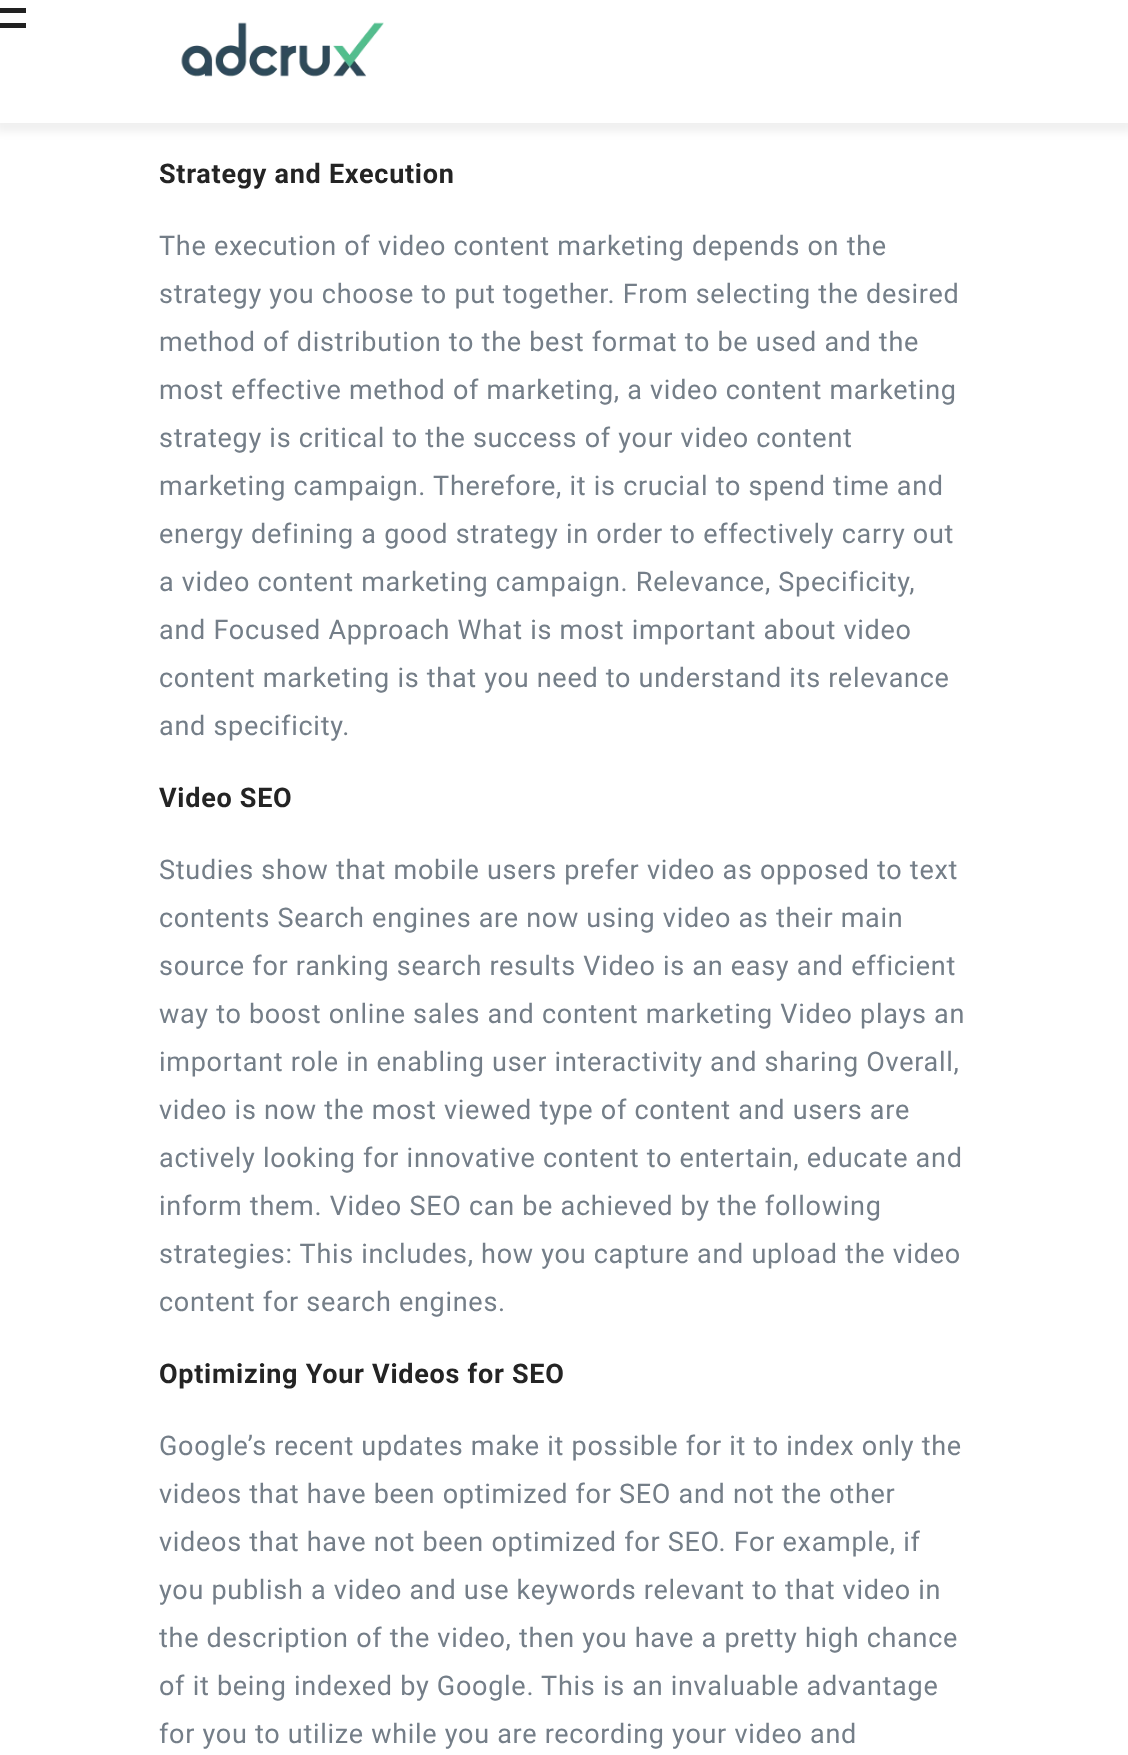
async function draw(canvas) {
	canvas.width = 1128;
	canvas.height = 1755;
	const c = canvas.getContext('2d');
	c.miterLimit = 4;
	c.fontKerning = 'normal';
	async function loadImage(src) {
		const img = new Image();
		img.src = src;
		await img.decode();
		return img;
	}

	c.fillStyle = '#fff';
	c.fillRect(0, 0, 1128, 1755);
	c.fillStyle = '#0000000f';
	c.filter = 'blur(4.5px)';
	c.beginPath();
	c.rect(-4, 0, 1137, 132);
	c.fill();
	c.filter = 'none';
	for (const [x, y, w, h, color] of [
		[0, 0, 1128, 123, '#fff'],
		[0, 8, 26, 5, '#212121'],
		[0, 23, 26, 5, '#212121'],
	]) {
		c.fillStyle = color;
		c.fillRect(x, y, w, h);
	}
	c.drawImage(await loadImage('img1.png'), 181, 22, 203, 55);
	c.letterSpacing = '0.72px';
	c.font = 'bold 27px Roboto';
	c.fillStyle = '#242424';
	c.fillText('Strategy and Execution', 159, 183);
	c.font = '27px Roboto';
	c.fillStyle = '#747e88';
	for (const [text, x, y] of [
		['The execution of video content marketing depends on the', 159, 255],
		['strategy you choose to put together. From selecting the desired', 159, 303],
		['method of distribution to the best format to be used and the', 159, 351],
		['most effective method of marketing, a video content marketing', 159, 399],
		['strategy is critical to the success of your video content', 159, 447],
		['marketing campaign. Therefore, it is crucial to spend time and', 159, 495],
		['energy defining a good strategy in order to effectively carry out', 159, 543],
		['a video content marketing campaign. Relevance, Specificity,', 159, 591],
		['and Focused Approach What is most important about video', 159, 639],
		['content marketing is that you need to understand its relevance', 159, 687],
		['and specificity.', 159, 735],
	]) {
		c.fillText(text, x, y);
	}
	c.font = 'bold 27px Roboto';
	c.fillStyle = '#242424';
	c.fillText('Video SEO', 159, 807);
	c.font = '27px Roboto';
	c.fillStyle = '#747e88';
	for (const [text, x, y] of [
		['Studies show that mobile users prefer video as opposed to text', 159, 879],
		['contents Search engines are now using video as their main', 159, 927],
		['source for ranking search results Video is an easy and efficient', 159, 975],
		['way to boost online sales and content marketing Video plays an', 159, 1023],
		['important role in enabling user interactivity and sharing Overall,', 159, 1071],
		['video is now the most viewed type of content and users are', 159, 1119],
		['actively looking for innovative content to entertain, educate and', 159, 1167],
		['inform them. Video SEO can be achieved by the following', 159, 1215],
		['strategies: This includes, how you capture and upload the video', 159, 1263],
		['content for search engines.', 159, 1311],
	]) {
		c.fillText(text, x, y);
	}
	c.font = 'bold 27px Roboto';
	c.fillStyle = '#242424';
	c.fillText('Optimizing Your Videos for SEO', 159, 1383);
	c.font = '27px Roboto';
	c.fillStyle = '#747e88';
	for (const [text, x, y] of [
		['Google’s recent updates make it possible for it to index only the', 159, 1455],
		['videos that have been optimized for SEO and not the other', 159, 1503],
		['videos that have not been optimized for SEO. For example, if', 159, 1551],
		['you publish a video and use keywords relevant to that video in', 159, 1599],
		['the description of the video, then you have a pretty high chance', 159, 1647],
		['of it being indexed by Google. This is an invaluable advantage', 159, 1695],
		['for you to utilize while you are recording your video and', 159, 1743],
	]) {
		c.fillText(text, x, y);
	}
}

draw(document.querySelector('canvas'));
